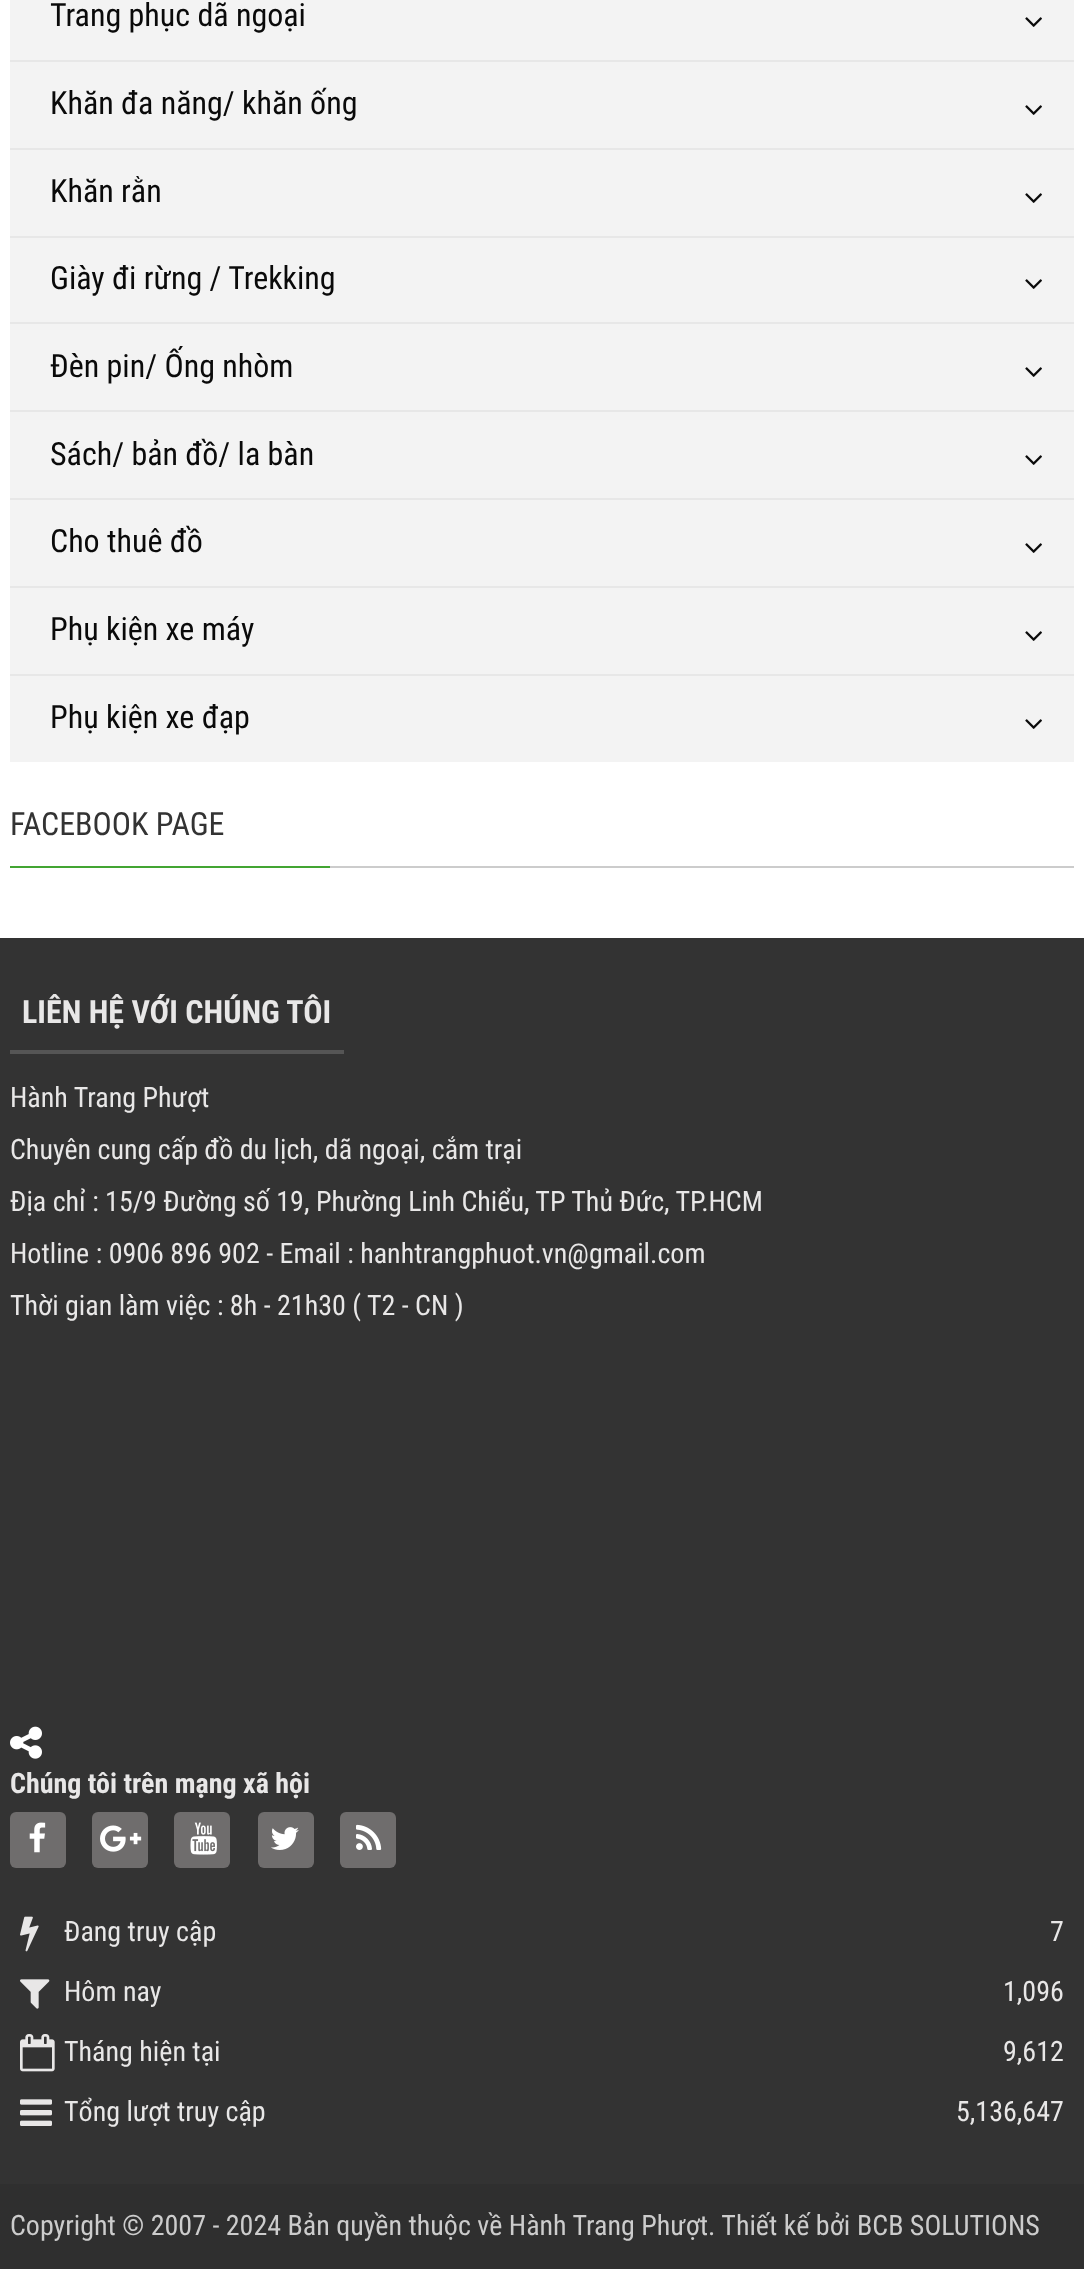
async function draw(canvas) {
	canvas.width = 1084;
	canvas.height = 2269;
	const c = canvas.getContext('2d');
	c.miterLimit = 4;
	c.fontKerning = 'normal';
	async function loadImage(src) {
		const img = new Image();
		img.src = src;
		await img.decode();
		return img;
	}

	c.fillStyle = '#fff';
	c.fillRect(0, 0, 1084, 2269);
	c.fillStyle = '#f3f3f3';
	c.fillRect(10, 0, 1064, 762);
	c.font = '32px Roboto Condensed';
	c.fillStyle = '#0a0a0a';
	c.fillText('Trang phục dã ngoại', 50, 26);
	c.drawImage(await loadImage('img1.png'), 1025, 17, 17, 10);
	c.fillStyle = '#e7e7e7';
	c.fillRect(10, 60, 1064, 2);
	c.fillStyle = '#0a0a0a';
	c.fillText('Khăn đa năng/ khăn ống', 50, 114);
	c.drawImage(await loadImage('img1.png'), 1025, 105, 17, 10);
	c.fillStyle = '#e7e7e7';
	c.fillRect(10, 148, 1064, 2);
	c.fillStyle = '#0a0a0a';
	c.fillText('Khăn rằn', 50, 202);
	c.drawImage(await loadImage('img1.png'), 1025, 193, 17, 10);
	c.fillStyle = '#e7e7e7';
	c.fillRect(10, 236, 1064, 2);
	c.fillStyle = '#0a0a0a';
	c.fillText('Giày đi rừng / Trekking', 50, 289);
	c.drawImage(await loadImage('img1.png'), 1025, 279, 17, 10);
	c.fillStyle = '#e7e7e7';
	c.fillRect(10, 322, 1064, 2);
	c.fillStyle = '#0a0a0a';
	c.fillText('Đèn pin/ Ống nhòm', 50, 377);
	c.drawImage(await loadImage('img1.png'), 1025, 367, 17, 10);
	c.fillStyle = '#e7e7e7';
	c.fillRect(10, 410, 1064, 2);
	c.fillStyle = '#0a0a0a';
	c.fillText('Sách/ bản đồ/ la bàn', 50, 465);
	c.drawImage(await loadImage('img1.png'), 1025, 455, 17, 10);
	c.fillStyle = '#e7e7e7';
	c.fillRect(10, 498, 1064, 2);
	c.fillStyle = '#0a0a0a';
	c.fillText('Cho thuê đồ', 50, 552);
	c.drawImage(await loadImage('img1.png'), 1025, 543, 17, 10);
	c.fillStyle = '#e7e7e7';
	c.fillRect(10, 586, 1064, 2);
	c.fillStyle = '#0a0a0a';
	c.fillText('Phụ kiện xe máy', 50, 640);
	c.drawImage(await loadImage('img1.png'), 1025, 631, 17, 10);
	c.fillStyle = '#e7e7e7';
	c.fillRect(10, 674, 1064, 2);
	c.fillStyle = '#0a0a0a';
	c.fillText('Phụ kiện xe đạp', 50, 728);
	c.drawImage(await loadImage('img1.png'), 1025, 719, 17, 10);
	c.fillStyle = '#ccc';
	c.fillRect(330, 866, 744, 2);
	c.fillStyle = '#333';
	c.fillText('FACEBOOK PAGE', 10, 835);
	for (const [x, y, w, h, color] of [
		[10, 866, 320, 2, '#43a532'],
		[0, 938, 1084, 1246, '#333'],
		[10, 1050, 334, 4, '#555'],
	]) {
		c.fillStyle = color;
		c.fillRect(x, y, w, h);
	}
	c.font = 'bold 32px Roboto Condensed';
	c.fillStyle = '#e8e7e7';
	c.fillText('LIÊN HỆ VỚI CHÚNG TÔI', 22, 1023);
	c.font = '28px Roboto Condensed';
	for (const [text, x, y] of [
		['Hành Trang Phượt', 10, 1107],
		['Chuyên cung cấp đồ du lịch, dã ngoại, cắm trại', 10, 1159],
		['Địa chỉ : 15/9 Đường số 19, Phường Linh Chiểu, TP Thủ Đức, TP.HCM', 10, 1211],
		['Hotline : 0906 896 902 - Email : hanhtrangphuot.vn@gmail.com', 10, 1263],
		['Thời gian làm việc : 8h - 21h30 ( T2 - CN )', 10, 1315],
	]) {
		c.fillText(text, x, y);
	}
	c.drawImage(await loadImage('img2.png'), 10, 1726, 32, 33);
	c.font = 'bold 28px Roboto Condensed';
	c.fillText('Chúng tôi trên mạng xã hội', 10, 1793);
	c.fillStyle = '#6f6d6d';
	c.beginPath();
	c.roundRect(10, 1812, 56, 56, 6);
	c.fill();
	c.drawImage(await loadImage('img3.png'), 29, 1822, 17, 31);
	c.beginPath();
	c.roundRect(92, 1812, 56, 56, 6);
	c.fill();
	c.drawImage(await loadImage('img4.png'), 100, 1825, 42, 27);
	c.beginPath();
	c.roundRect(174, 1812, 56, 56, 6);
	c.fill();
	c.drawImage(await loadImage('img5.png'), 190, 1822, 27, 33);
	c.beginPath();
	c.roundRect(258, 1812, 56, 56, 6);
	c.fill();
	c.drawImage(await loadImage('img6.png'), 271, 1827, 28, 23);
	c.beginPath();
	c.roundRect(340, 1812, 56, 56, 6);
	c.fill();
	c.drawImage(await loadImage('img7.png'), 356, 1824, 26, 26);
	c.drawImage(await loadImage('img8.png'), 20, 1916, 19, 36);
	c.font = '28px Roboto Condensed';
	c.fillStyle = '#e8e7e7';
	c.fillText('Đang truy cập', 64, 1941);
	c.fillText('7', 1050, 1941);
	c.drawImage(await loadImage('img9.png'), 20, 1979, 30, 30);
	c.fillText('Hôm nay', 64, 2001);
	c.fillText('1,096', 1003, 2001);
	c.drawImage(await loadImage('img10.png'), 20, 2034, 35, 38);
	c.fillText('Tháng hiện tại', 64, 2061);
	c.fillText('9,612', 1003, 2061);
	c.drawImage(await loadImage('img11.png'), 20, 2099, 32, 27);
	c.fillText('Tổng lượt truy cập', 64, 2121);
	c.fillText('5,136,647', 956, 2121);
	c.fillStyle = '#2f2f2f';
	c.fillRect(0, 2184, 1084, 85);
	c.fillStyle = '#ccc';
	c.fillText('Copyright © 2007 - 2024 Bản quyền thuộc về Hành Trang Phượt. Thiết kế bởi', 10, 2235);
	c.fillText('BCB SOLUTIONS', 857, 2235);
}

draw(document.querySelector('canvas'));
